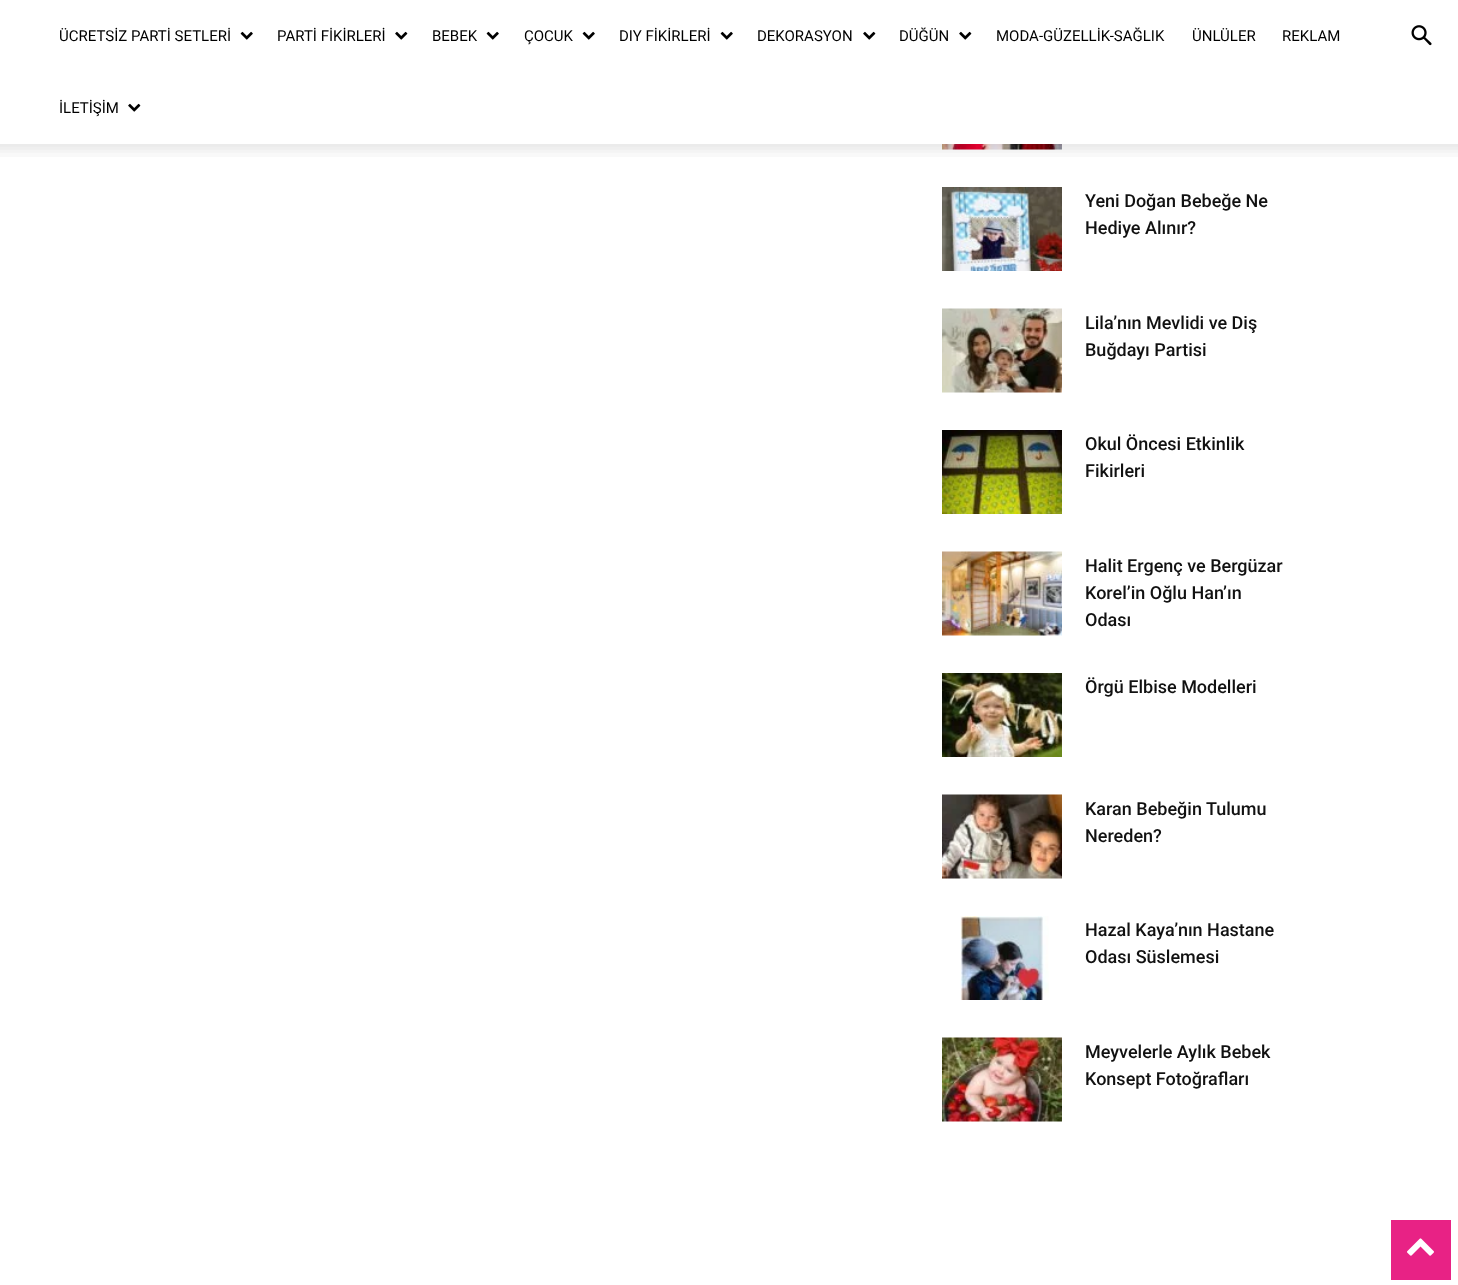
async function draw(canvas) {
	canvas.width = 1458;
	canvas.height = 1285;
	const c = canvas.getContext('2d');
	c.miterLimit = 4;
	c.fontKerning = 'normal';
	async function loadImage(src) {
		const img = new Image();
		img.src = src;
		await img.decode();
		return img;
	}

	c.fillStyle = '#fff';
	c.fillRect(0, 0, 1458, 1285);
	c.font = '15px Roboto';
	c.fillStyle = '#000';
	c.fillText('ÜCRETSİZ PARTİ SETLERİ', 59, 41);
	c.drawImage(await loadImage('img1.png'), 240, 31, 13, 9);
	c.fillText('PARTİ FİKİRLERİ', 277, 41);
	c.drawImage(await loadImage('img2.png'), 395, 31, 13, 9);
	c.fillText('BEBEK', 432, 41);
	c.drawImage(await loadImage('img1.png'), 486, 31, 13, 9);
	c.fillText('ÇOCUK', 524, 41);
	c.drawImage(await loadImage('img1.png'), 582, 31, 13, 9);
	c.fillText('DIY FİKİRLERİ', 619, 41);
	c.drawImage(await loadImage('img1.png'), 720, 31, 13, 9);
	c.fillText('DEKORASYON', 757, 41);
	c.drawImage(await loadImage('img2.png'), 863, 31, 13, 9);
	c.fillText('DÜĞÜN', 899, 41);
	c.drawImage(await loadImage('img2.png'), 959, 31, 13, 9);
	for (const [text, x, y] of [
		['MODA-GÜZELLİK-SAĞLIK', 996, 41],
		['ÜNLÜLER', 1192, 41],
		['REKLAM', 1282, 41],
		['İLETİŞİM', 59, 113],
	]) {
		c.fillText(text, x, y);
	}
	c.drawImage(await loadImage('img2.png'), 128, 103, 13, 9);
	c.drawImage(await loadImage('img3.png'), 1411, 25, 21, 21);
	c.drawImage(await loadImage('img5.png'), 942, 144, 120, 6);
	c.drawImage(await loadImage('img4.png'), 0, 144, 1458, 13);
	c.drawImage(await loadImage('img6.png'), 942, 187, 120, 84);
	c.font = '500 18px Roboto';
	c.fillStyle = '#111';
	c.fillText('Yeni Doğan Bebeğe Ne', 1085, 207);
	c.fillText('Hediye Alınır?', 1085, 234);
	c.drawImage(await loadImage('img7.png'), 942, 308, 120, 85);
	c.fillText('Lila’nın Mevlidi ve Diş', 1085, 329);
	c.fillText('Buğdayı Partisi', 1085, 356);
	c.drawImage(await loadImage('img8.png'), 942, 430, 120, 84);
	c.fillText('Okul Öncesi Etkinlik', 1085, 450);
	c.fillText('Fikirleri', 1085, 477);
	c.drawImage(await loadImage('img9.png'), 942, 551, 120, 85);
	for (const [text, x, y] of [
		['Halit Ergenç ve Bergüzar', 1085, 572],
		['Korel’in Oğlu Han’ın', 1085, 599],
		['Odası', 1085, 626],
	]) {
		c.fillText(text, x, y);
	}
	c.drawImage(await loadImage('img10.png'), 942, 673, 120, 84);
	c.fillText('Örgü Elbise Modelleri', 1085, 693);
	c.drawImage(await loadImage('img11.png'), 942, 794, 120, 85);
	c.fillText('Karan Bebeğin Tulumu', 1085, 815);
	c.fillText('Nereden?', 1085, 842);
	c.drawImage(await loadImage('img12.png'), 960, 916, 89, 84);
	c.fillText('Hazal Kaya’nın Hastane', 1085, 936);
	c.fillText('Odası Süslemesi', 1085, 963);
	c.drawImage(await loadImage('img13.png'), 942, 1037, 120, 85);
	c.fillText('Meyvelerle Aylık Bebek', 1085, 1058);
	c.fillText('Konsept Fotoğrafları', 1085, 1085);
	c.fillStyle = '#e82285';
	c.fillRect(1391, 1220, 60, 60);
	c.drawImage(await loadImage('img14.png'), 1407, 1238, 27, 18);
}

draw(document.querySelector('canvas'));
